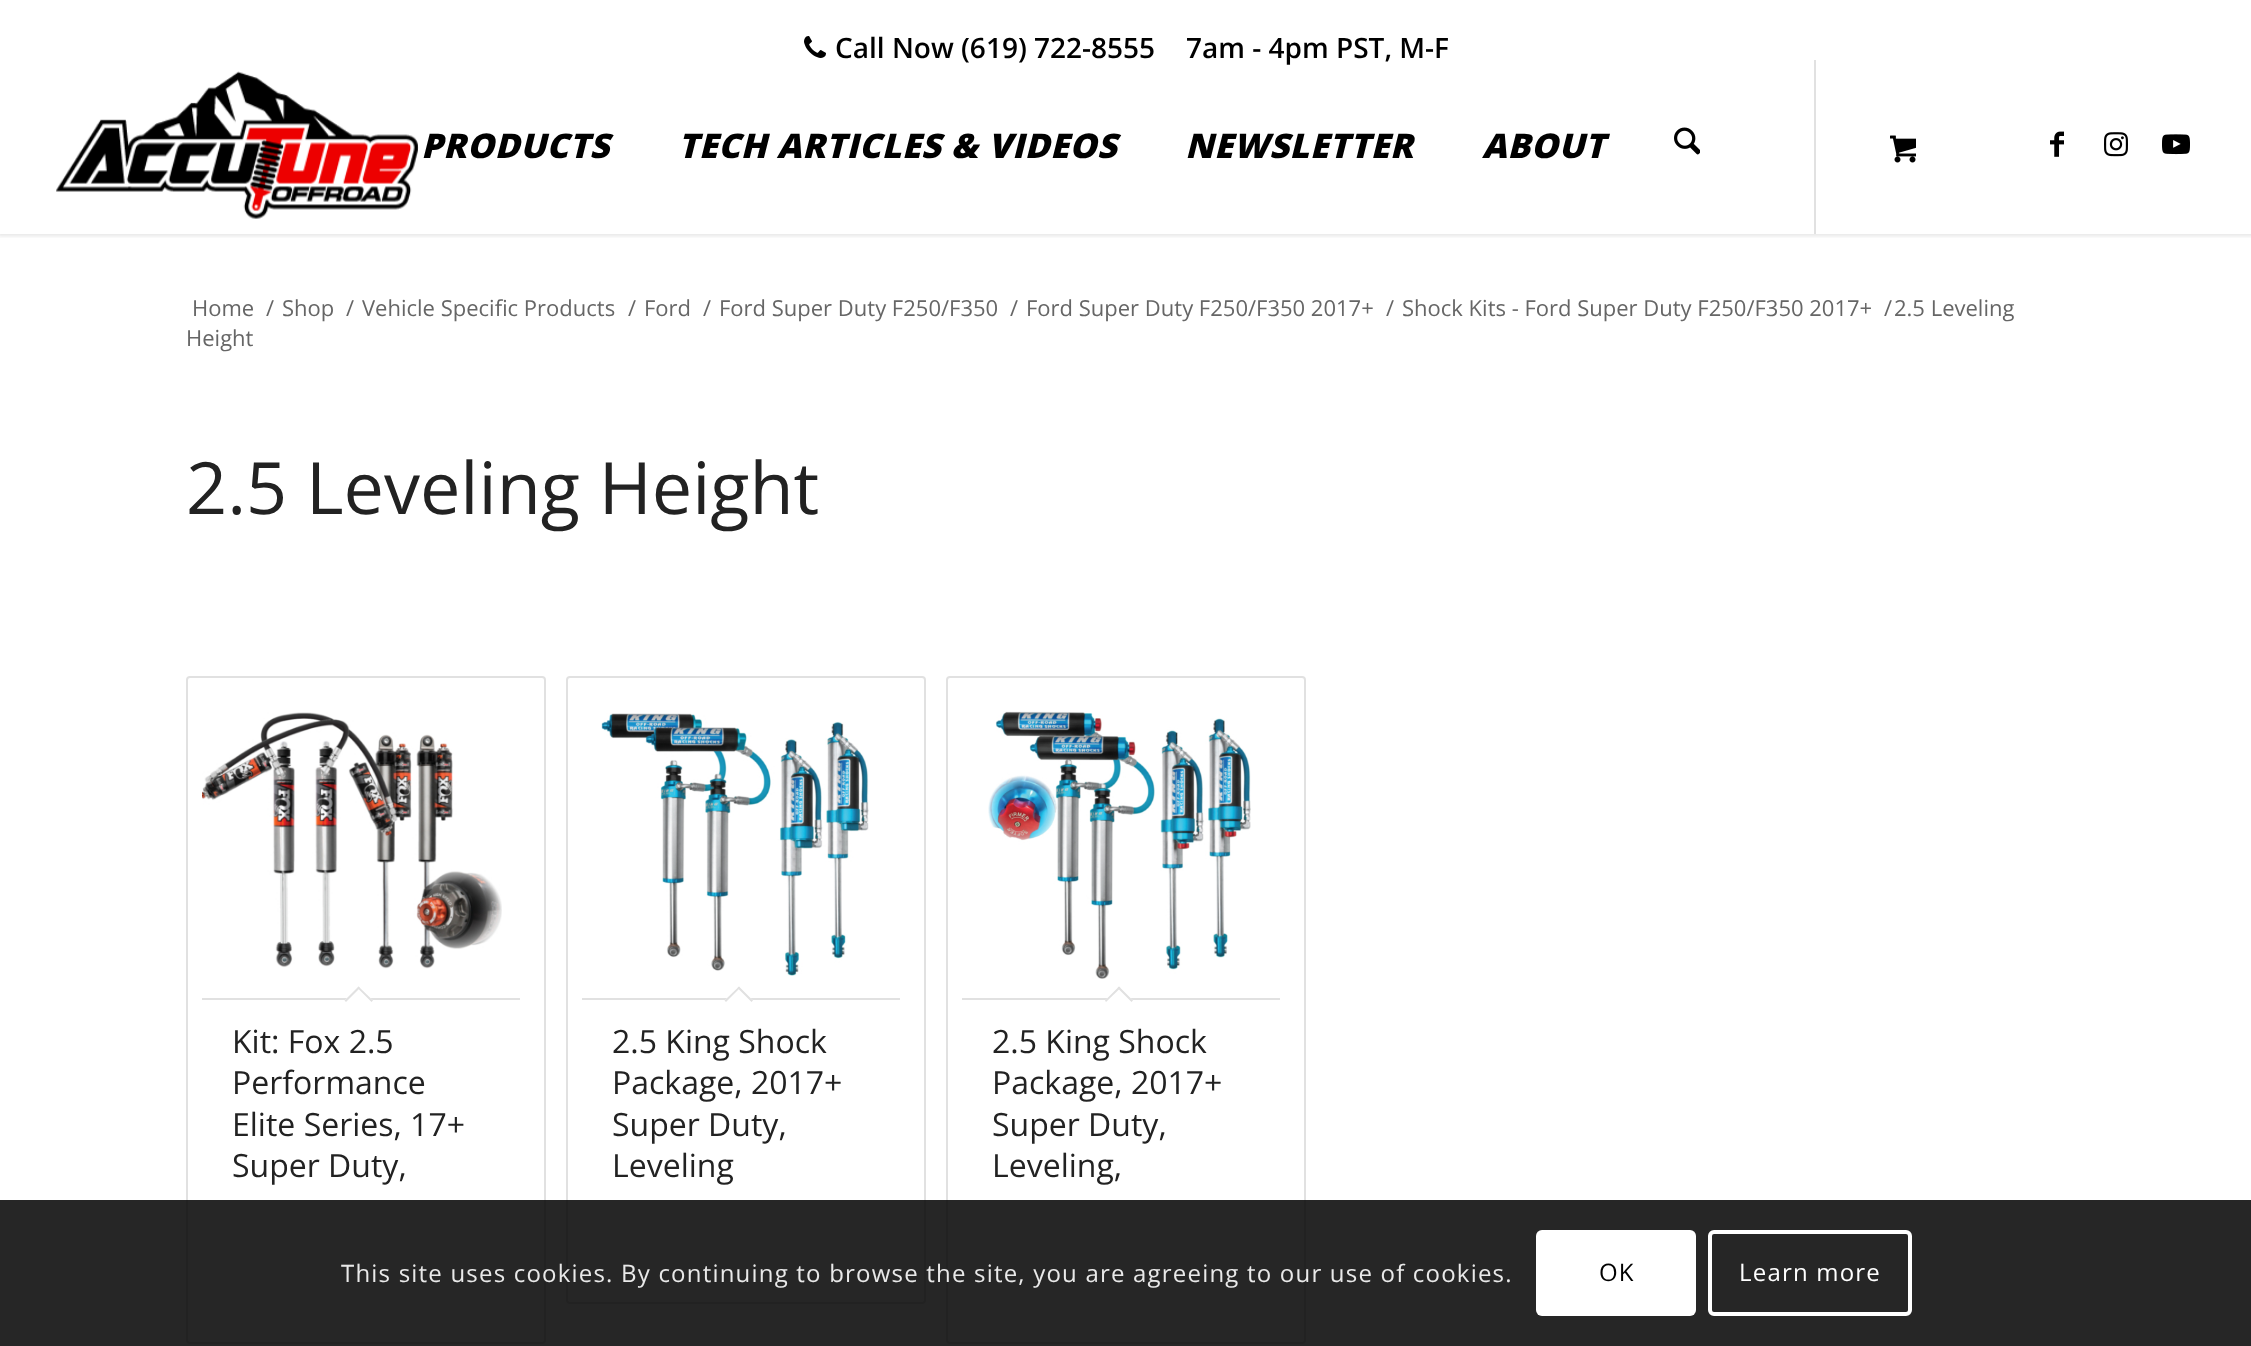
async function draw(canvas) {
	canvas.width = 2251;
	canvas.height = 1346;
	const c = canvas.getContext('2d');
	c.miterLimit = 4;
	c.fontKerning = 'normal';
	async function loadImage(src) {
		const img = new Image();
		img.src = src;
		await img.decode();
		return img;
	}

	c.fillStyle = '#fff';
	c.fillRect(0, 0, 2251, 1346);
	c.save();
	c.beginPath();
	c.rect(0, 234, 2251, 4);
	c.clip();
	c.fillStyle = '#0000001a';
	c.filter = 'blur(2px)';
	c.beginPath();
	c.rect(-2, -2, 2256, 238);
	c.fill();
	c.filter = 'none';
	c.restore();
	c.fillStyle = '#e1e1e1';
	c.fillRect(1814, 58, 2, 176);
	c.fillStyle = '#fff';
	c.fillRect(1814, 58, 2, 2);
	c.drawImage(await loadImage('img1.png'), 804, 36, 22, 22);
	c.font = '600 28px Open Sans';
	c.fillStyle = '#000';
	c.fillText('Call Now (619) 722-8555', 835, 58);
	c.fillText('7am - 4pm PST, M-F', 1186, 58);
	c.drawImage(await loadImage('img2.png'), 56, 71, 363, 148);
	c.letterSpacing = '0.6px';
	c.font = 'italic 800 34px Open Sans';
	for (const [text, x, y] of [
		['PRODUCTS', 421, 158],
		['TECH ARTICLES & VIDEOS', 678, 158],
		['NEWSLETTER', 1185, 158],
		['ABOUT', 1482, 158],
	]) {
		c.fillText(text, x, y);
	}
	c.drawImage(await loadImage('img3.png'), 1674, 127, 26, 28);
	c.drawImage(await loadImage('img4.png'), 1890, 135, 26, 28);
	c.drawImage(await loadImage('img5.png'), 2050, 131, 14, 26);
	c.drawImage(await loadImage('img6.png'), 2104, 132, 24, 25);
	c.drawImage(await loadImage('img7.png'), 2162, 134, 28, 21);
	c.letterSpacing = '0px';
	c.font = '22px Open Sans';
	c.fillStyle = '#666';
	for (const [text, x, y] of [
		['Home', 192, 316],
		['/', 266, 316],
		['Shop', 282, 316],
		['/', 346, 316],
		['Vehicle Specific Products', 362, 316],
		['/', 628, 316],
		['Ford', 644, 316],
		['/', 703, 316],
		['Ford Super Duty F250/F350', 719, 316],
		['/', 1010, 316],
		['Ford Super Duty F250/F350 2017+', 1026, 316],
		['/', 1386, 316],
		['Shock Kits - Ford Super Duty F250/F350 2017+', 1402, 316],
		['/', 1884, 316],
		['2.5 Leveling', 1894, 316],
		['Height', 186, 346],
	]) {
		c.fillText(text, x, y);
	}
	c.font = '72px Open Sans';
	c.fillStyle = '#222';
	c.fillText('2.5 Leveling Height', 186, 514);
	c.beginPath();
	c.roundRect(187, 677, 358, 666, 3);
	c.strokeStyle = '#e1e1e1';
	c.lineWidth = 2;
	c.stroke();
	c.drawImage(await loadImage('img8.png'), 202, 712, 300, 257);
	c.fillStyle = '#e1e1e1';
	c.fillRect(202, 998, 318, 2);
	c.fillStyle = '#fff';
	c.beginPath();
	c.moveTo(358.5, 986.5);
	c.lineTo(373, 1000.5);
	c.lineTo(358.5, 1015);
	c.lineTo(344.5, 1000.5);
	c.closePath();
	c.fill();
	c.fillStyle = '#e1e1e1';
	c.beginPath();
	c.moveTo(358.5, 986.5);
	c.lineTo(373, 1000.5);
	c.lineTo(371.5, 1002);
	c.lineTo(357.5, 988);
	c.closePath();
	c.fill();
	c.beginPath();
	c.moveTo(358.5, 986.5);
	c.lineTo(360, 988);
	c.lineTo(346, 1002);
	c.lineTo(344.5, 1000.5);
	c.closePath();
	c.fill();
	c.font = '32px Open Sans';
	c.fillStyle = '#222';
	for (const [text, x, y] of [
		['Kit: Fox 2.5', 232, 1053],
		['Performance', 232, 1094],
		['Elite Series, 17+', 232, 1136],
		['Super Duty,', 232, 1177],
	]) {
		c.fillText(text, x, y);
	}
	c.beginPath();
	c.roundRect(567, 677, 358, 626, 3);
	c.stroke();
	c.drawImage(await loadImage('img9.png'), 601, 713, 268, 263);
	c.fillStyle = '#e1e1e1';
	c.fillRect(582, 998, 318, 2);
	c.fillStyle = '#fff';
	c.beginPath();
	c.moveTo(739, 986.5);
	c.lineTo(753, 1000.5);
	c.lineTo(739, 1015);
	c.lineTo(724.5, 1000.5);
	c.closePath();
	c.fill();
	c.fillStyle = '#e1e1e1';
	c.beginPath();
	c.moveTo(739, 986.5);
	c.lineTo(753, 1000.5);
	c.lineTo(751.5, 1002);
	c.lineTo(737.5, 988);
	c.closePath();
	c.fill();
	c.beginPath();
	c.moveTo(739, 986.5);
	c.lineTo(740, 988);
	c.lineTo(726, 1002);
	c.lineTo(724.5, 1000.5);
	c.closePath();
	c.fill();
	c.fillStyle = '#222';
	for (const [text, x, y] of [
		['2.5 King Shock', 612, 1053],
		['Package, 2017+', 612, 1094],
		['Super Duty,', 612, 1136],
		['Leveling', 612, 1177],
	]) {
		c.fillText(text, x, y);
	}
	c.beginPath();
	c.roundRect(947, 677, 358, 666, 3);
	c.stroke();
	c.drawImage(await loadImage('img10.png'), 988, 711, 263, 268);
	c.fillStyle = '#e1e1e1';
	c.fillRect(962, 998, 318, 2);
	c.fillStyle = '#fff';
	c.beginPath();
	c.moveTo(1119, 986.5);
	c.lineTo(1133, 1000.5);
	c.lineTo(1119, 1015);
	c.lineTo(1105, 1000.5);
	c.closePath();
	c.fill();
	c.fillStyle = '#e1e1e1';
	c.beginPath();
	c.moveTo(1119, 986.5);
	c.lineTo(1133, 1000.5);
	c.lineTo(1131.5, 1002);
	c.lineTo(1117.5, 988);
	c.closePath();
	c.fill();
	c.beginPath();
	c.moveTo(1119, 986.5);
	c.lineTo(1120.5, 988);
	c.lineTo(1106, 1002);
	c.lineTo(1105, 1000.5);
	c.closePath();
	c.fill();
	c.fillStyle = '#222';
	for (const [text, x, y] of [
		['2.5 King Shock', 992, 1053],
		['Package, 2017+', 992, 1094],
		['Super Duty,', 992, 1136],
		['Leveling,', 992, 1177],
	]) {
		c.fillText(text, x, y);
	}
	c.fillStyle = '#000000d9';
	c.fillRect(0, 1200, 2251, 146);
	c.letterSpacing = '1.2px';
	c.font = '24px Open Sans';
	c.fillStyle = '#e9e9e9';
	c.fillText('This site uses cookies. By continuing to browse the site, you are agreeing to our use of cookies.', 341, 1282);
	c.fillStyle = '#fff';
	c.beginPath();
	c.roundRect(1536, 1230, 160, 86, 6);
	c.fill();
	c.fillStyle = '#000';
	c.fillText('OK', 1599, 1281);
	c.beginPath();
	c.roundRect(1710, 1232, 200, 82, 4);
	c.strokeStyle = '#fff';
	c.lineWidth = 4;
	c.stroke();
	c.fillStyle = '#fff';
	c.fillText('Learn more', 1739, 1281);
}

draw(document.querySelector('canvas'));
